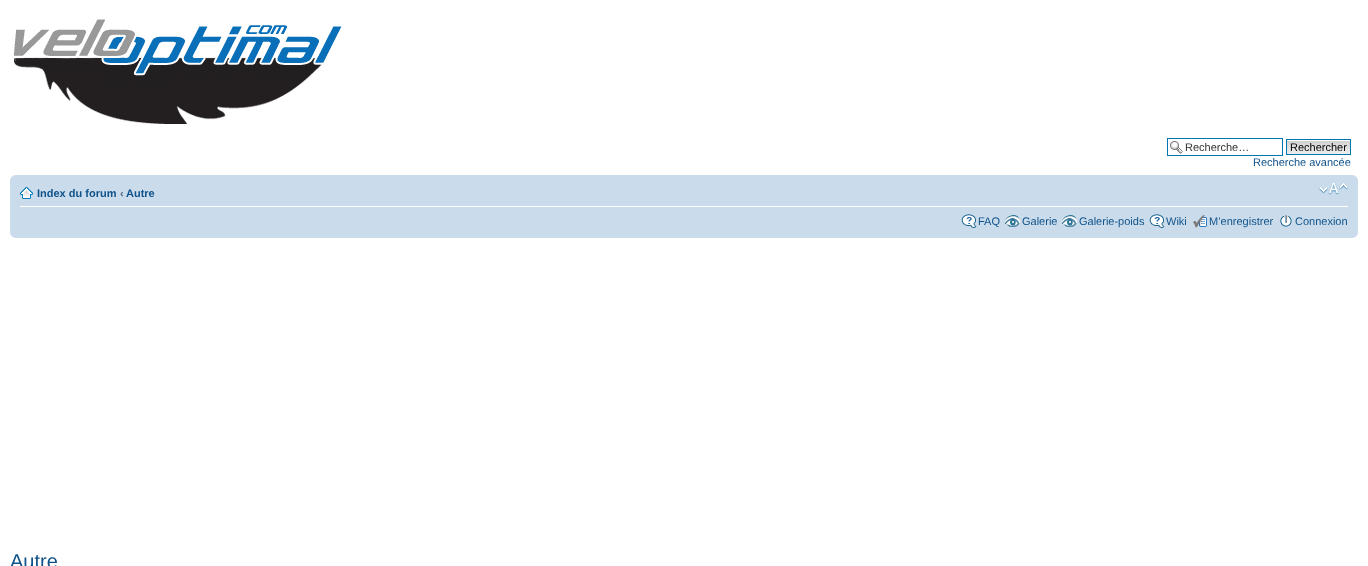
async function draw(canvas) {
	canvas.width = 1368;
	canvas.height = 566;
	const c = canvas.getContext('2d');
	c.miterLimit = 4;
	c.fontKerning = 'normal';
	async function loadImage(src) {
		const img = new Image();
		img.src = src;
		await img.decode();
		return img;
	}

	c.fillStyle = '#fff';
	c.fillRect(0, 0, 1368, 566);
	c.drawImage(await loadImage('img1.png'), 13, 19, 329, 106);
	c.drawImage(await loadImage('img2.png'), 1170, 141, 13, 13);
	c.strokeStyle = '#0075b0';
	c.strokeRect(1167.5, 138.5, 115, 17);
	c.font = '11px Liberation Sans';
	c.fillStyle = '#333';
	c.fillText('Recherche…', 1185, 151);
	c.drawImage(await loadImage('img3.png'), 1287, 140, 63, 14);
	c.strokeRect(1286.5, 139.5, 64, 15);
	c.fillStyle = '#000';
	c.fillText('Rechercher', 1290, 151);
	c.fillStyle = '#105289';
	c.fillText('Recherche avancée', 1253, 166);
	c.fillStyle = '#cadceb';
	c.fillRect(10, 175, 1348, 63);
	c.drawImage(await loadImage('img4.png'), 10, 175, 5, 5);
	c.drawImage(await loadImage('img5.png'), 1353, 175, 5, 5);
	c.fillStyle = '#fff';
	c.fillRect(20, 206, 1328, 1);
	c.drawImage(await loadImage('img6.png'), 20, 187, 13, 12);
	c.font = 'bold 11px Liberation Sans';
	c.fillStyle = '#105289';
	c.fillText('Index du forum', 37, 197);
	c.fillStyle = '#536482';
	c.fillText('‹', 120, 197);
	c.fillStyle = '#105289';
	c.fillText('Autre', 126, 197);
	c.drawImage(await loadImage('img7.png'), 1319, 183, 29, 12);
	c.drawImage(await loadImage('img8.png'), 961, 214, 16, 14);
	c.font = '11px Liberation Sans';
	c.fillText('FAQ', 978, 225);
	c.drawImage(await loadImage('img9.png'), 1005, 215, 15, 12);
	c.fillText('Galerie', 1022, 225);
	c.drawImage(await loadImage('img9.png'), 1062, 215, 15, 12);
	c.fillText('Galerie-poids', 1079, 225);
	c.drawImage(await loadImage('img8.png'), 1149, 214, 16, 14);
	c.fillText('Wiki', 1166, 225);
	c.drawImage(await loadImage('img10.png'), 1193, 215, 14, 13);
	c.fillText('M’enregistrer', 1209, 225);
	c.drawImage(await loadImage('img11.png'), 1280, 215, 12, 12);
	c.fillText('Connexion', 1295, 225);
	c.drawImage(await loadImage('img12.png'), 10, 233, 5, 5);
	c.drawImage(await loadImage('img13.png'), 1353, 233, 5, 5);
	c.font = '20px Liberation Sans';
	c.fillText('Autre', 10, 568);
}

draw(document.querySelector('canvas'));
